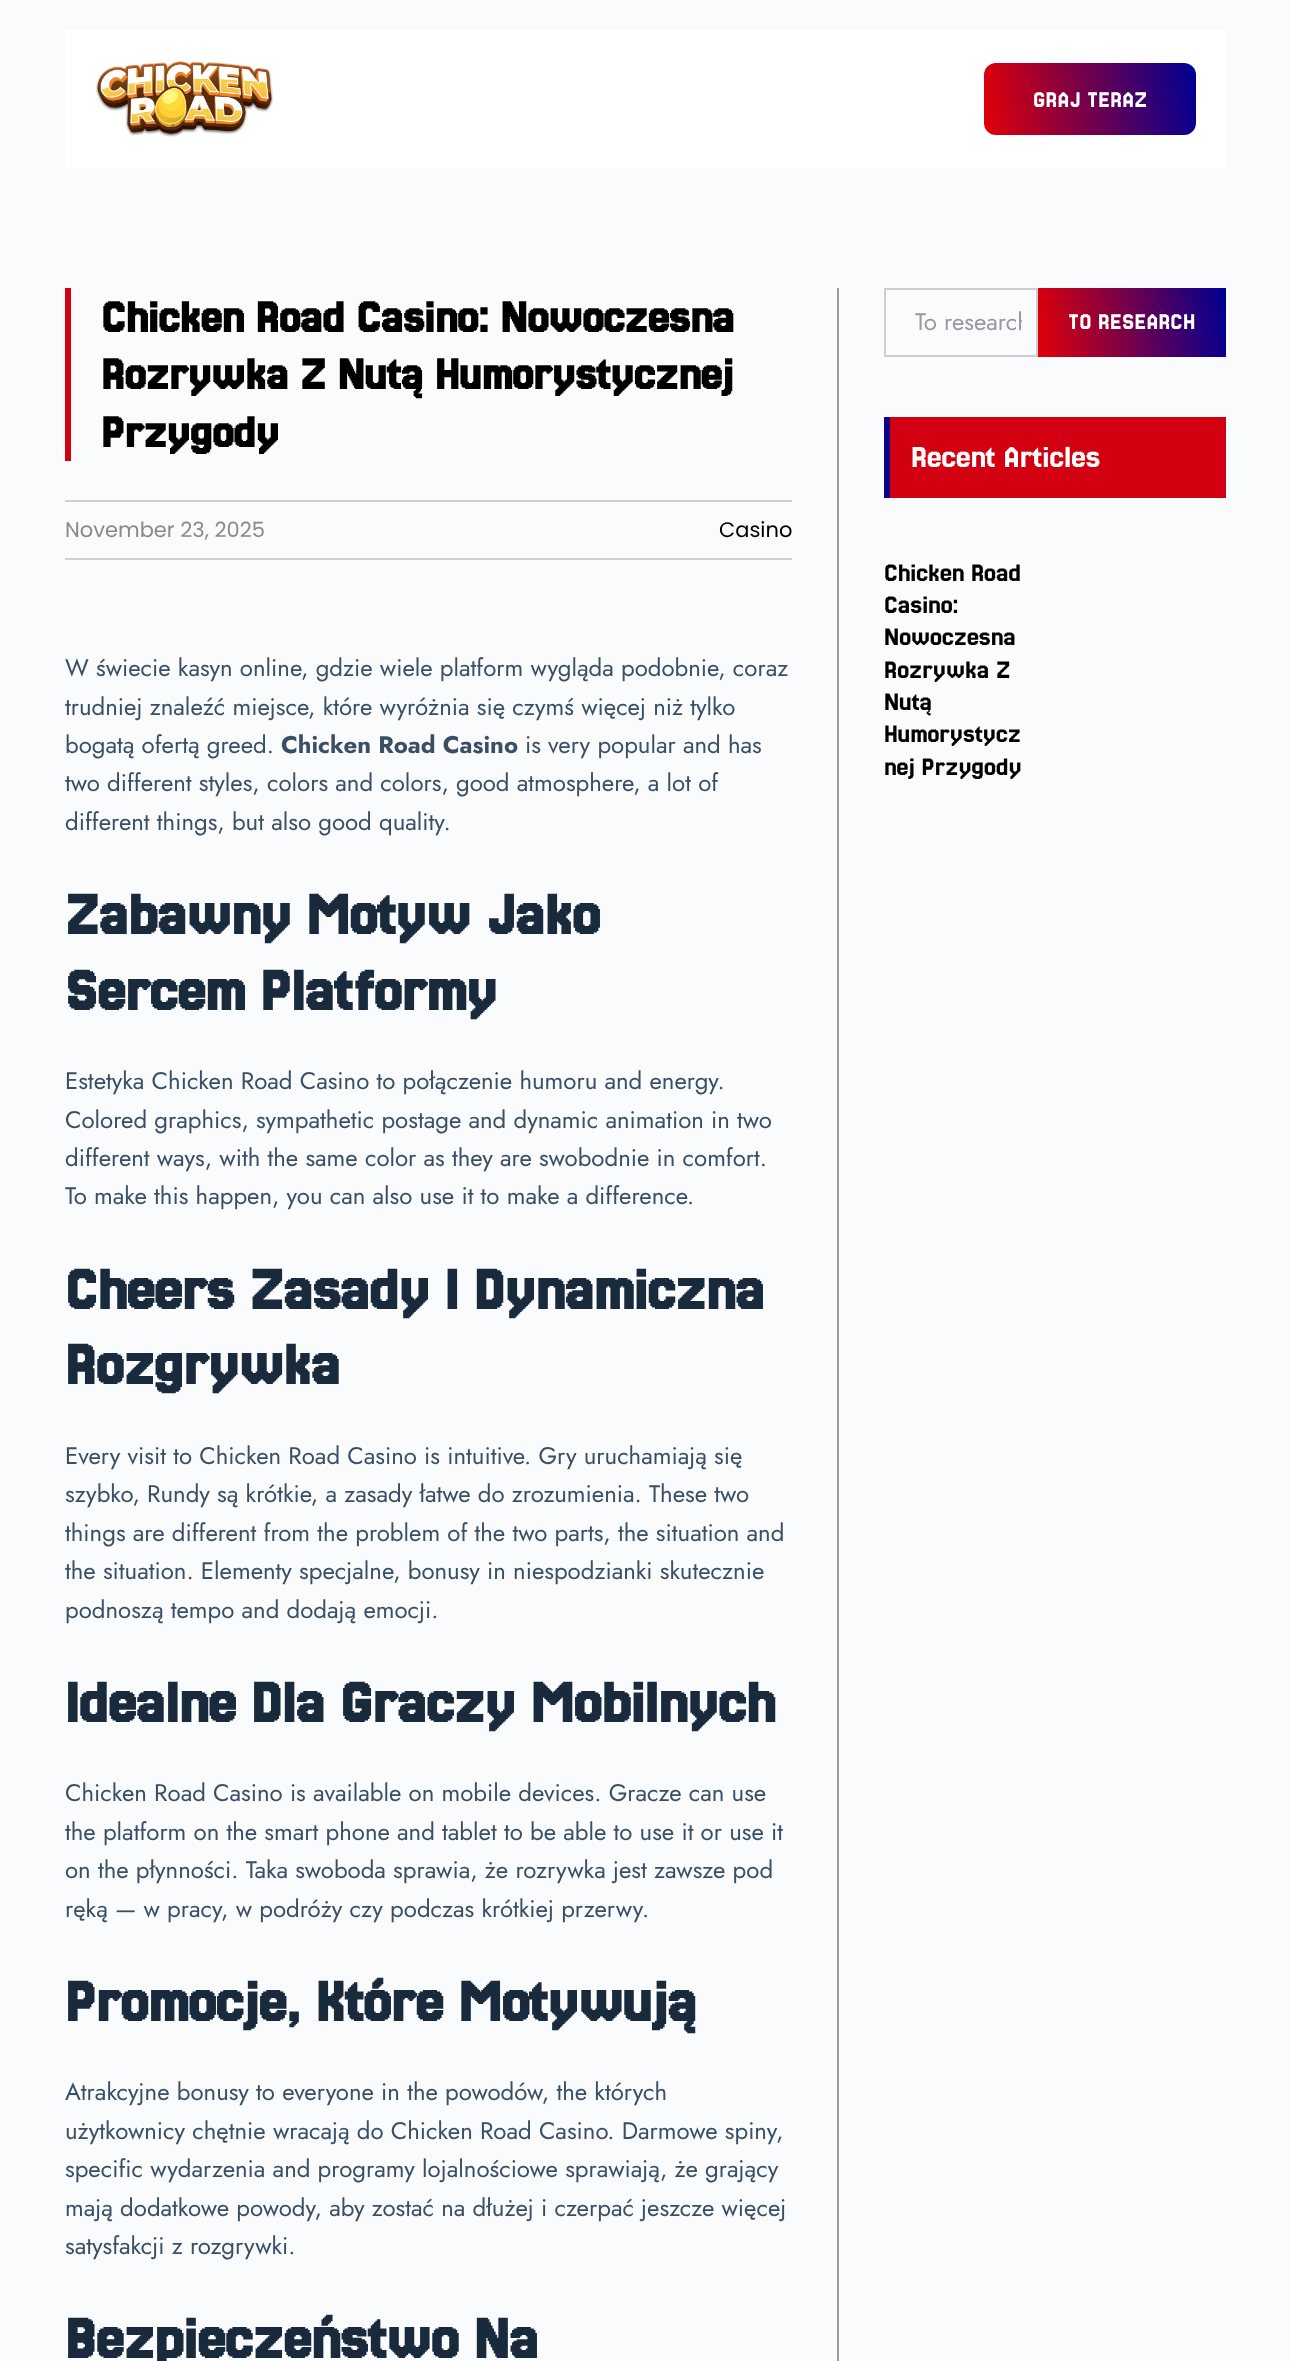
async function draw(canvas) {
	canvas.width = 1289;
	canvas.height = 2361;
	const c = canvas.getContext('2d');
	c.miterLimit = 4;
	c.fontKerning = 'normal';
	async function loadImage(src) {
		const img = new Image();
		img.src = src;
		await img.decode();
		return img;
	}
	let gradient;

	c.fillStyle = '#fafbfc';
	c.fillRect(0, 0, 1289, 2361);
	c.fillStyle = '#fff';
	c.fillRect(65, 30, 1161, 138);
	c.drawImage(await loadImage('img1.png'), 96, 61, 177, 76);
	gradient = c.createLinearGradient(1198, 84, 981, 114);
	gradient.addColorStop(0, '#000092');
	gradient.addColorStop(1, '#e20007');
	c.fillStyle = gradient;
	c.beginPath();
	c.roundRect(984, 63, 212, 72, 12);
	c.fill();
	c.letterSpacing = '0.25px';
	c.font = '24px "Jersey 25"';
	c.fillStyle = '#fff';
	c.fillText('GRAJ TERAZ', 1033, 107);
	c.fillStyle = '#a19a9a';
	c.fillRect(837, 288, 2, 2073);
	c.fillStyle = '#d20011';
	c.fillRect(65, 288, 6, 173);
	c.letterSpacing = '0px';
	c.font = 'bold 48px "Jersey 25"';
	c.fillStyle = '#000';
	for (const [text, x, y] of [
		['Chicken Road Casino: Nowoczesna', 101, 332],
		['Rozrywka Z Nutą Humorystycznej', 101, 389],
		['Przygody', 101, 447],
	]) {
		c.fillText(text, x, y);
	}
	c.fillStyle = '#cfd0d0';
	c.fillRect(65, 500, 727, 2);
	c.fillRect(65, 558, 727, 2);
	c.font = '21px Poppins';
	c.fillStyle = '#898989';
	c.fillText('November 23, 2025', 65, 537);
	c.fillStyle = '#000';
	c.fillText('Casino', 719, 537);
	c.font = '24px Jost';
	c.fillStyle = '#3a4f66';
	for (const [text, x, y] of [
		['W świecie kasyn online, gdzie wiele platform wygląda podobnie, coraz', 65, 676],
		['trudniej znaleźć miejsce, które wyróżnia się czymś więcej niż tylko', 65, 715],
		['bogatą ofertą greed.', 65, 753],
	]) {
		c.fillText(text, x, y);
	}
	c.font = 'bold 24px Jost';
	c.fillText('Chicken Road Casino', 281, 753);
	c.font = '24px Jost';
	for (const [text, x, y] of [
		['is very popular and has', 525, 753],
		['two different styles, colors and colors, good atmosphere, a lot of', 65, 791],
		['different things, but also good quality.', 65, 830],
	]) {
		c.fillText(text, x, y);
	}
	c.font = 'bold 63px "Jersey 25"';
	c.fillStyle = '#192a3d';
	c.fillText('Zabawny Motyw Jako', 65, 934);
	c.fillText('Sercem Platformy', 65, 1010);
	c.font = '24px Jost';
	c.fillStyle = '#3a4f66';
	for (const [text, x, y] of [
		['Estetyka Chicken Road Casino to połączenie humoru and energy.', 65, 1089],
		['Colored graphics, sympathetic postage and dynamic animation in two', 65, 1128],
		['different ways, with the same color as they are swobodnie in comfort.', 65, 1166],
		['To make this happen, you can also use it to make a difference.', 65, 1204],
	]) {
		c.fillText(text, x, y);
	}
	c.font = 'bold 63px "Jersey 25"';
	c.fillStyle = '#192a3d';
	c.fillText('Cheers Zasady I Dynamiczna', 65, 1309);
	c.fillText('Rozgrywka', 65, 1384);
	c.font = '24px Jost';
	c.fillStyle = '#3a4f66';
	for (const [text, x, y] of [
		['Every visit to Chicken Road Casino is intuitive. Gry uruchamiają się', 65, 1464],
		['szybko, Rundy są krótkie, a zasady łatwe do zrozumienia. These two', 65, 1502],
		['things are different from the problem of the two parts, the situation and', 65, 1541],
		['the situation. Elementy specjalne, bonusy in niespodzianki skutecznie', 65, 1579],
		['podnoszą tempo and dodają emocji.', 65, 1618],
	]) {
		c.fillText(text, x, y);
	}
	c.font = 'bold 63px "Jersey 25"';
	c.fillStyle = '#192a3d';
	c.fillText('Idealne Dla Graczy Mobilnych', 65, 1722);
	c.font = '24px Jost';
	c.fillStyle = '#3a4f66';
	for (const [text, x, y] of [
		['Chicken Road Casino is available on mobile devices. Gracze can use', 65, 1801],
		['the platform on the smart phone and tablet to be able to use it or use it', 65, 1840],
		['on the płynności. Taka swoboda sprawia, że rozrywka jest zawsze pod', 65, 1878],
		['ręką — w pracy, w podróży czy podczas krótkiej przerwy.', 65, 1917],
	]) {
		c.fillText(text, x, y);
	}
	c.font = 'bold 63px "Jersey 25"';
	c.fillStyle = '#192a3d';
	c.fillText('Promocje, Które Motywują', 65, 2021);
	c.font = '24px Jost';
	c.fillStyle = '#3a4f66';
	for (const [text, x, y] of [
		['Atrakcyjne bonusy to everyone in the powodów, the których', 65, 2100],
		['użytkownicy chętnie wracają do Chicken Road Casino. Darmowe spiny,', 65, 2139],
		['specific wydarzenia and programy lojalnościowe sprawiają, że grający', 65, 2177],
		['mają dodatkowe powody, aby zostać na dłużej i czerpać jeszcze więcej', 65, 2216],
		['satysfakcji z rozgrywki.', 65, 2254],
	]) {
		c.fillText(text, x, y);
	}
	c.font = 'bold 63px "Jersey 25"';
	c.fillStyle = '#192a3d';
	c.fillText('Bezpieczeństwo Na', 65, 2358);
	c.strokeStyle = '#cdcdcd';
	c.lineWidth = 2;
	c.strokeRect(885, 289, 152, 67);
	c.save();
	c.beginPath();
	c.rect(915, 305, 107, 34);
	c.clip();
	c.font = '24px Jost';
	c.fillStyle = '#959aa0';
	c.fillText('To research', 915, 330);
	c.restore();
	gradient = c.createLinearGradient(1228, 309, 1035, 336);
	gradient.addColorStop(0, '#000092');
	gradient.addColorStop(1, '#e20007');
	c.fillStyle = gradient;
	c.fillRect(1038, 288, 188, 69);
	c.letterSpacing = '0.25px';
	c.font = '24px "Jersey 25"';
	c.fillStyle = '#fff';
	c.fillText('TO RESEARCH', 1068, 329);
	c.fillStyle = '#d20011';
	c.fillRect(890, 417, 336, 81);
	c.fillStyle = '#100089';
	c.fillRect(884, 417, 6, 81);
	c.letterSpacing = '0px';
	c.font = '33px "Jersey 25"';
	c.fillStyle = '#fff';
	c.fillText('Recent Articles', 911, 467);
	c.font = '27px "Jersey 25"';
	c.fillStyle = '#000';
	for (const [text, x, y] of [
		['Chicken Road', 884, 581],
		['Casino:', 884, 613],
		['Nowoczesna', 884, 645],
		['Rozrywka Z', 884, 678],
		['Nutą', 884, 710],
		['Humorystycz', 884, 742],
		['nej Przygody', 884, 775],
	]) {
		c.fillText(text, x, y);
	}
}

draw(document.querySelector('canvas'));
